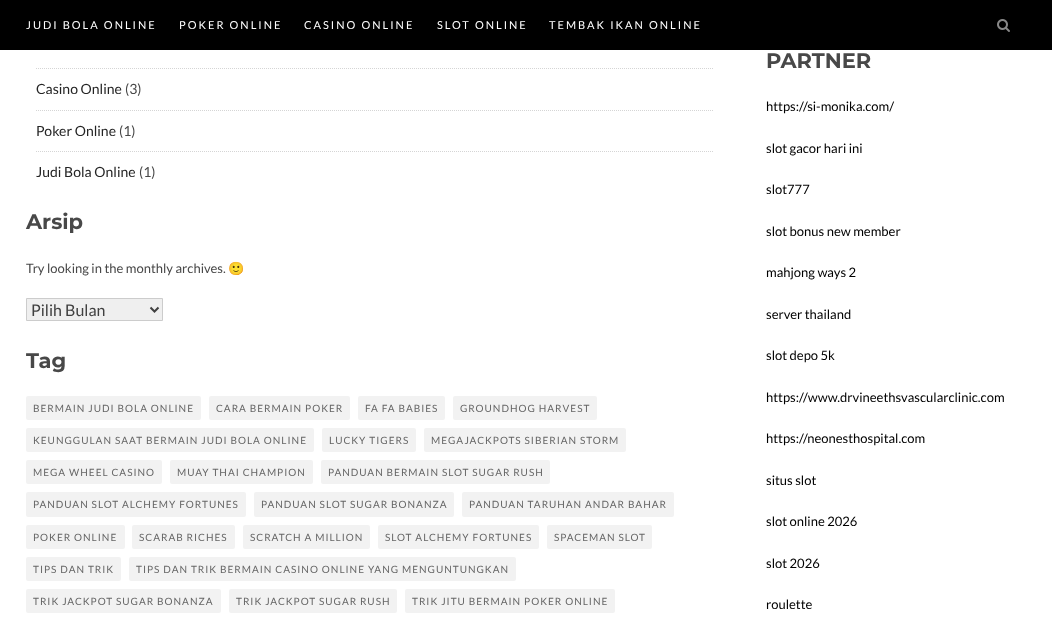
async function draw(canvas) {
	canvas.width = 1052;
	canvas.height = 617;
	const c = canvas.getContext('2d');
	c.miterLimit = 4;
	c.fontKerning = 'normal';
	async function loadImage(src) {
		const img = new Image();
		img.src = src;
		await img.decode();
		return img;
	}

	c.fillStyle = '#fff';
	c.fillRect(0, 0, 1052, 617);
	c.fillStyle = '#000';
	c.fillRect(0, 0, 1052, 50);
	c.letterSpacing = '2px';
	c.font = '11px Lato';
	c.fillStyle = '#fff';
	for (const [text, x, y] of [
		['JUDI BOLA ONLINE', 26, 29],
		['POKER ONLINE', 179, 29],
		['CASINO ONLINE', 304, 29],
		['SLOT ONLINE', 437, 29],
		['TEMBAK IKAN ONLINE', 549, 29],
	]) {
		c.fillText(text, x, y);
	}
	c.drawImage(await loadImage('img1.png'), 997, 19, 13, 13);
	c.beginPath();
	c.moveTo(36, 68.5);
	c.lineTo(713, 68.5);
	c.strokeStyle = '#d5d5d5';
	c.setLineDash([1, 1]);
	c.stroke();
	c.beginPath();
	c.moveTo(36, 110.5);
	c.lineTo(713, 110.5);
	c.stroke();
	c.letterSpacing = '0px';
	c.font = '14px Lato';
	c.fillStyle = '#242424';
	c.fillText('Casino Online', 36, 94);
	c.fillStyle = '#484848';
	c.fillText('(3)', 125, 94);
	c.beginPath();
	c.moveTo(36, 151.5);
	c.lineTo(713, 151.5);
	c.stroke();
	c.fillStyle = '#242424';
	c.fillText('Poker Online', 36, 136);
	c.fillStyle = '#484848';
	c.fillText('(1)', 119, 136);
	c.fillStyle = '#242424';
	c.fillText('Judi Bola Online', 36, 177);
	c.fillStyle = '#484848';
	c.fillText('(1)', 139, 177);
	c.font = 'bold 21px Montserrat';
	c.fillText('Arsip', 26, 229);
	c.font = '13px Lato';
	c.fillText('Try looking in the monthly archives.', 26, 273);
	c.font = '13px Noto Color Emoji';
	c.fillText('🙂', 228, 273);
	c.fillStyle = '#efefef';
	c.beginPath();
	c.rect(26.5, 298.5, 136, 22);
	c.fill();
	c.strokeStyle = '#ccc';
	c.setLineDash([]);
	c.stroke();
	c.beginPath();
	c.moveTo(150.5, 307.5);
	c.lineTo(154.5, 311.5);
	c.lineTo(158.5, 307.5);
	c.strokeStyle = '#404040';
	c.lineWidth = 2;
	c.stroke();
	c.font = '16px Lato';
	c.fillStyle = '#404040';
	c.fillText('Pilih Bulan', 31, 316);
	c.font = 'bold 21px Montserrat';
	c.fillStyle = '#484848';
	c.fillText('Tag', 26, 368);
	c.fillStyle = '#f2f2f2';
	c.beginPath();
	c.roundRect(26, 396, 175, 24, 2);
	c.fill();
	c.letterSpacing = '1px';
	c.font = '10px Lato';
	c.fillStyle = '#666';
	c.fillText('BERMAIN JUDI BOLA ONLINE', 33, 412);
	c.fillStyle = '#f2f2f2';
	c.beginPath();
	c.roundRect(209, 396, 141, 24, 2);
	c.fill();
	c.fillStyle = '#666';
	c.fillText('CARA BERMAIN POKER', 216, 412);
	c.fillStyle = '#f2f2f2';
	c.beginPath();
	c.roundRect(358, 396, 87, 24, 2);
	c.fill();
	c.fillStyle = '#666';
	c.fillText('FA FA BABIES', 365, 412);
	c.fillStyle = '#f2f2f2';
	c.beginPath();
	c.roundRect(453, 396, 144, 24, 2);
	c.fill();
	c.fillStyle = '#666';
	c.fillText('GROUNDHOG HARVEST', 460, 412);
	c.fillStyle = '#f2f2f2';
	c.beginPath();
	c.roundRect(26, 428, 288, 24, 2);
	c.fill();
	c.fillStyle = '#666';
	c.fillText('KEUNGGULAN SAAT BERMAIN JUDI BOLA ONLINE', 33, 444);
	c.fillStyle = '#f2f2f2';
	c.beginPath();
	c.roundRect(322, 428, 94, 24, 2);
	c.fill();
	c.fillStyle = '#666';
	c.fillText('LUCKY TIGERS', 329, 444);
	c.fillStyle = '#f2f2f2';
	c.beginPath();
	c.roundRect(424, 428, 202, 24, 2);
	c.fill();
	c.fillStyle = '#666';
	c.fillText('MEGAJACKPOTS SIBERIAN STORM', 431, 444);
	c.fillStyle = '#f2f2f2';
	c.beginPath();
	c.roundRect(26, 460, 136, 24, 2);
	c.fill();
	c.fillStyle = '#666';
	c.fillText('MEGA WHEEL CASINO', 33, 476);
	c.fillStyle = '#f2f2f2';
	c.beginPath();
	c.roundRect(170, 460, 143, 24, 2);
	c.fill();
	c.fillStyle = '#666';
	c.fillText('MUAY THAI CHAMPION', 177, 476);
	c.fillStyle = '#f2f2f2';
	c.beginPath();
	c.roundRect(321, 460, 229, 24, 2);
	c.fill();
	c.fillStyle = '#666';
	c.fillText('PANDUAN BERMAIN SLOT SUGAR RUSH', 328, 476);
	c.fillStyle = '#f2f2f2';
	c.beginPath();
	c.roundRect(26, 492, 220, 25, 2);
	c.fill();
	c.fillStyle = '#666';
	c.fillText('PANDUAN SLOT ALCHEMY FORTUNES', 33, 508);
	c.fillStyle = '#f2f2f2';
	c.beginPath();
	c.roundRect(254, 492, 200, 25, 2);
	c.fill();
	c.fillStyle = '#666';
	c.fillText('PANDUAN SLOT SUGAR BONANZA', 261, 508);
	c.fillStyle = '#f2f2f2';
	c.beginPath();
	c.roundRect(462, 492, 212, 25, 2);
	c.fill();
	c.fillStyle = '#666';
	c.fillText('PANDUAN TARUHAN ANDAR BAHAR', 469, 508);
	c.fillStyle = '#f2f2f2';
	c.beginPath();
	c.roundRect(26, 525, 99, 24, 2);
	c.fill();
	c.fillStyle = '#666';
	c.fillText('POKER ONLINE', 33, 541);
	c.fillStyle = '#f2f2f2';
	c.beginPath();
	c.roundRect(132, 525, 103, 24, 2);
	c.fill();
	c.fillStyle = '#666';
	c.fillText('SCARAB RICHES', 139, 541);
	c.fillStyle = '#f2f2f2';
	c.beginPath();
	c.roundRect(243, 525, 127, 24, 2);
	c.fill();
	c.fillStyle = '#666';
	c.fillText('SCRATCH A MILLION', 250, 541);
	c.fillStyle = '#f2f2f2';
	c.beginPath();
	c.roundRect(378, 525, 161, 24, 2);
	c.fill();
	c.fillStyle = '#666';
	c.fillText('SLOT ALCHEMY FORTUNES', 385, 541);
	c.fillStyle = '#f2f2f2';
	c.beginPath();
	c.roundRect(547, 525, 105, 24, 2);
	c.fill();
	c.fillStyle = '#666';
	c.fillText('SPACEMAN SLOT', 554, 541);
	c.fillStyle = '#f2f2f2';
	c.beginPath();
	c.roundRect(26, 557, 95, 24, 2);
	c.fill();
	c.fillStyle = '#666';
	c.fillText('TIPS DAN TRIK', 33, 573);
	c.fillStyle = '#f2f2f2';
	c.beginPath();
	c.roundRect(129, 557, 387, 24, 2);
	c.fill();
	c.fillStyle = '#666';
	c.fillText('TIPS DAN TRIK BERMAIN CASINO ONLINE YANG MENGUNTUNGKAN', 136, 573);
	c.fillStyle = '#f2f2f2';
	c.beginPath();
	c.roundRect(26, 589, 195, 24, 2);
	c.fill();
	c.fillStyle = '#666';
	c.fillText('TRIK JACKPOT SUGAR BONANZA', 33, 605);
	c.fillStyle = '#f2f2f2';
	c.beginPath();
	c.roundRect(229, 589, 168, 24, 2);
	c.fill();
	c.fillStyle = '#666';
	c.fillText('TRIK JACKPOT SUGAR RUSH', 236, 605);
	c.fillStyle = '#f2f2f2';
	c.beginPath();
	c.roundRect(405, 589, 210, 24, 2);
	c.fill();
	c.fillStyle = '#666';
	c.fillText('TRIK JITU BERMAIN POKER ONLINE', 412, 605);
	c.letterSpacing = '0px';
	c.font = 'bold 21px Montserrat';
	c.fillStyle = '#484848';
	c.fillText('PARTNER', 766, 68);
	c.font = '13px Lato';
	c.fillStyle = '#000';
	for (const [text, x, y] of [
		['https://si-monika.com/', 766, 111],
		['slot gacor hari ini', 766, 153],
		['slot777', 766, 194],
		['slot bonus new member', 766, 236],
		['mahjong ways 2', 766, 277],
		['server thailand', 766, 319],
		['slot depo 5k', 766, 360],
		['https://www.drvineethsvascularclinic.com', 766, 402],
		['https://neonesthospital.com', 766, 443],
		['situs slot', 766, 485],
		['slot online 2026', 766, 526],
		['slot 2026', 766, 568],
		['roulette', 766, 609],
	]) {
		c.fillText(text, x, y);
	}
}

draw(document.querySelector('canvas'));
